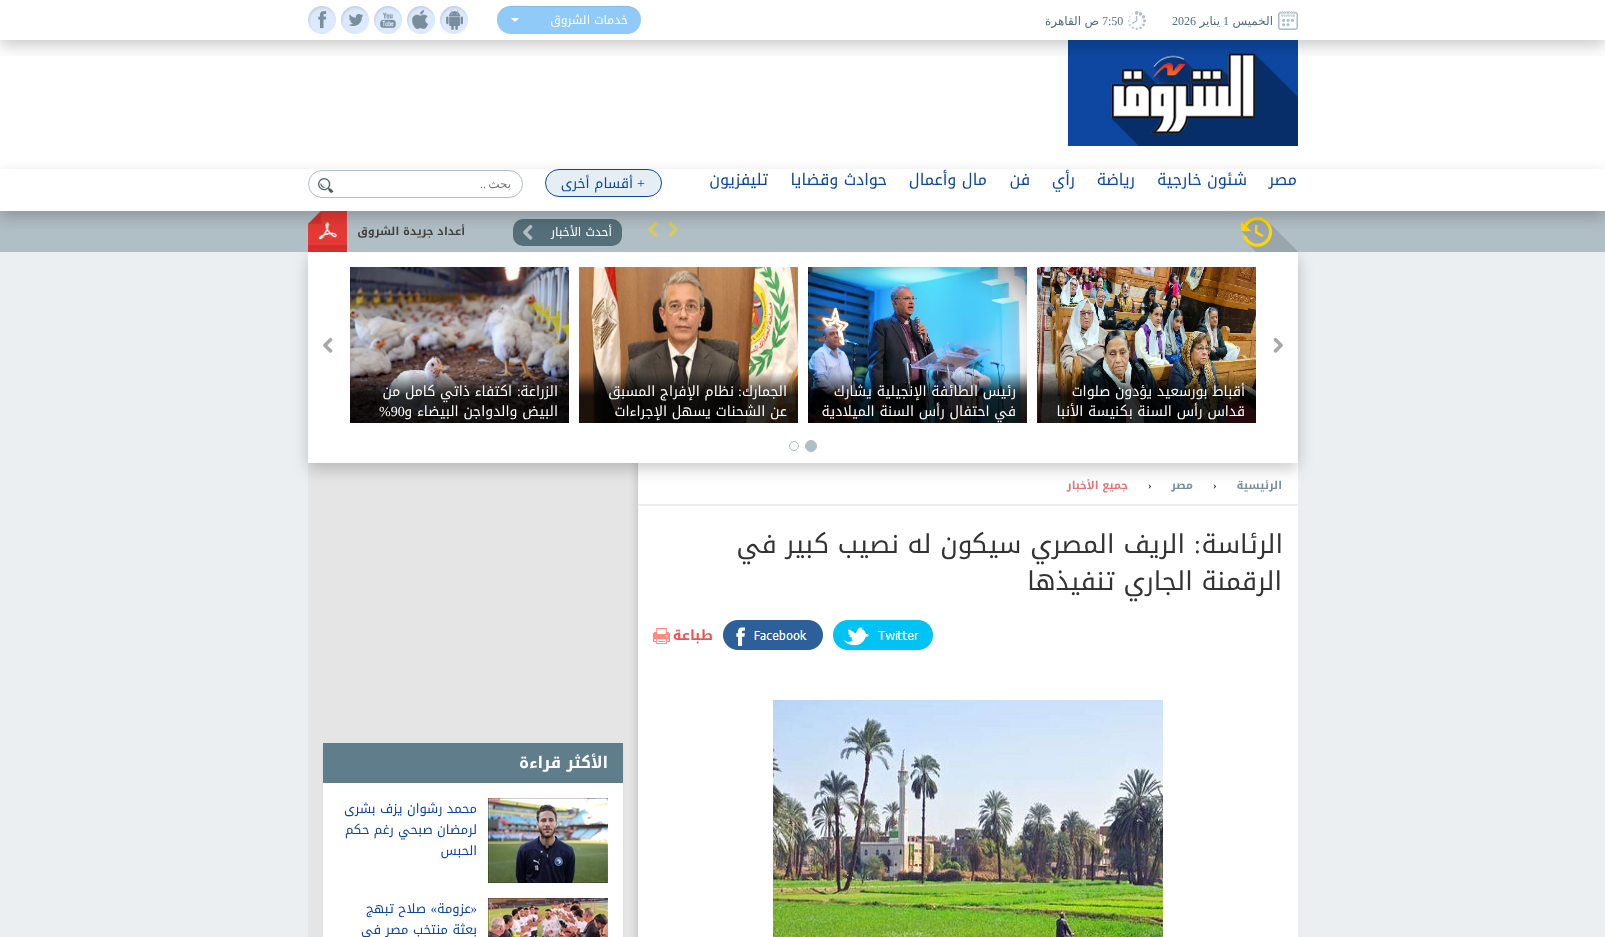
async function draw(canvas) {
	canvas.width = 1605;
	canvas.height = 937;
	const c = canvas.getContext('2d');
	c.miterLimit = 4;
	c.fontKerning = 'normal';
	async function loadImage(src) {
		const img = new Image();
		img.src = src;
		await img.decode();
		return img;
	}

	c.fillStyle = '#eceff1';
	c.fillRect(0, 0, 1605, 937);
	c.fillStyle = '#fff';
	c.fillRect(0, 0, 1605, 211);
	c.drawImage(await loadImage('img8.png'), 1068, 40, 230, 106);
	c.save();
	c.beginPath();
	c.rect(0, 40, 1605, 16);
	c.clip();
	c.fillStyle = '#00000033';
	c.filter = 'blur(7.5px)';
	c.beginPath();
	c.rect(0, 6, 1605, 40);
	c.fill();
	c.filter = 'none';
	c.restore();
	c.drawImage(await loadImage('img1.png'), 1278, 11, 20, 19);
	c.direction = 'rtl';
	c.font = '12px DejaVu Sans';
	c.fillStyle = '#546e7a';
	c.fillText('الخميس', 1273, 25);
	c.direction = 'ltr';
	c.font = '12px Liberation Serif';
	c.fillText('1', 1223, 25);
	c.direction = 'rtl';
	c.font = '12px DejaVu Sans';
	c.fillText('يناير', 1220, 25);
	c.direction = 'ltr';
	c.font = '12px Liberation Serif';
	c.fillText('2026', 1172, 25);
	c.drawImage(await loadImage('img2.png'), 1128, 11, 18, 19);
	c.fillText('7:50', 1102, 25);
	c.direction = 'rtl';
	c.font = '12px DejaVu Sans';
	c.fillText('ص', 1099, 25);
	c.fillText('القاهرة', 1081, 25);
	c.fillStyle = '#90caf9';
	c.beginPath();
	c.roundRect(497, 6, 144, 28, 14);
	c.fill();
	c.fillStyle = '#00000012';
	c.beginPath();
	c.moveTo(511, 7);
	c.lineTo(627, 7);
	c.bezierCurveTo(635, 7, 641, 13, 641, 20);
	c.bezierCurveTo(642, 2, 619, 6, 608, 6);
	c.lineTo(530, 6);
	c.bezierCurveTo(519, 6, 496, 2, 497, 20);
	c.bezierCurveTo(497, 13, 503, 7, 511, 7);
	c.closePath();
	c.fill();
	c.font = '12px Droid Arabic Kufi';
	c.fillStyle = '#fff';
	c.fillText('خدمات الشروق', 628, 24);
	c.beginPath();
	c.moveTo(511, 18);
	c.lineTo(519, 18);
	c.lineTo(515, 22);
	c.closePath();
	c.fill();
	c.drawImage(await loadImage('img3.png'), 440, 6, 28, 28);
	c.drawImage(await loadImage('img4.png'), 407, 6, 28, 28);
	c.drawImage(await loadImage('img5.png'), 374, 6, 28, 28);
	c.drawImage(await loadImage('img6.png'), 341, 6, 28, 28);
	c.drawImage(await loadImage('img7.png'), 308, 6, 28, 28);
	c.drawImage(await loadImage('img15.png'), 308, 463, 990, 474);
	c.fillStyle = '#00000033';
	c.filter = 'blur(7.5px)';
	c.beginPath();
	c.rect(308, 258, 990, 211);
	c.fill();
	c.filter = 'none';
	c.fillStyle = '#b0bec5';
	c.fillRect(0, 211, 1605, 41);
	c.drawImage(await loadImage('img10.png'), 1241, 217, 57, 35);
	c.drawImage(await loadImage('img11.png'), 668, 221, 10, 16);
	c.drawImage(await loadImage('img12.png'), 648, 221, 10, 16);
	c.fillStyle = '#546e7a';
	c.beginPath();
	c.roundRect(513, 219, 109, 27, 10);
	c.fill();
	c.drawImage(await loadImage('img13.png'), 523, 224, 10, 16);
	c.drawImage(await loadImage('img14.png'), 308, 211, 39, 41);
	c.save();
	c.beginPath();
	c.moveTo(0, 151);
	c.lineTo(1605, 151);
	c.lineTo(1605, 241);
	c.lineTo(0, 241);
	c.closePath();
	c.moveTo(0, 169);
	c.lineTo(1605, 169);
	c.lineTo(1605, 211);
	c.lineTo(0, 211);
	c.closePath();
	c.clip('evenodd');
	c.fillStyle = '#00000033';
	c.filter = 'blur(7.5px)';
	c.beginPath();
	c.rect(0, 175, 1605, 42);
	c.fill();
	c.filter = 'none';
	c.restore();
	c.font = '16px Droid Arabic Kufi';
	c.fillStyle = '#0d47a1';
	for (const [text, x, y] of [
		['مصر', 1297, 185],
		['شئون خارجية', 1247, 185],
		['رياضة', 1135, 185],
		['رأي', 1075, 185],
		['فن', 1030, 185],
		['مال وأعمال', 987, 185],
		['حوادث وقضايا', 887, 185],
		['تليفزيون', 768, 185],
	]) {
		c.fillText(text, x, y);
	}
	c.fillStyle = '#e5eef2';
	c.beginPath();
	c.roundRect(545.5, 169.5, 116, 27, 13.5);
	c.fill();
	c.strokeStyle = '#0d47a1';
	c.stroke();
	c.font = '14px Liberation Serif';
	c.fillStyle = '#0d47a1';
	c.fillText('+', 645, 188);
	c.font = '14px Droid Arabic Kufi';
	c.fillText('أقسام أخرى', 633, 188);
	c.beginPath();
	c.roundRect(308.5, 170.5, 214, 27, 13.5);
	c.strokeStyle = '#b0bec5';
	c.stroke();
	c.font = '12px DejaVu Sans';
	c.fillStyle = '#757575';
	c.fillText('بحث', 511, 188);
	c.font = '12px Liberation Serif';
	c.fillText('..', 486, 188);
	c.drawImage(await loadImage('img9.png'), 318, 178, 16, 15);
	c.font = '12px Droid Arabic Kufi';
	c.fillStyle = '#fff';
	c.fillText('أحدث الأخبار', 612, 236);
	c.font = 'bold 11px Droid Arabic Kufi';
	c.fillStyle = '#424242';
	c.fillText('أعداد جريدة الشروق', 465, 235);
	c.fillStyle = '#fff';
	c.fillRect(308, 252, 990, 211);
	c.drawImage(await loadImage('img16.png'), 1273, 337, 10, 16);
	c.drawImage(await loadImage('img17.png'), 323, 337, 10, 16);
	c.drawImage(await loadImage('img18.png'), 1037, 267, 219, 156);
	c.font = '14px Droid Arabic Kufi';
	c.fillText('أقباط بورسعيد يؤدون صلوات', 1245, 396);
	c.fillText('قداس رأس السنة بكنيسة الأنبا', 1245, 416);
	c.drawImage(await loadImage('img19.png'), 808, 267, 219, 156);
	c.fillText('رئيس الطائفة الإنجيلية يشارك', 1016, 396);
	c.fillText('في احتفال رأس السنة الميلادية', 1016, 416);
	c.drawImage(await loadImage('img20.png'), 579, 267, 219, 156);
	c.fillText('الجمارك', 787, 396);
	c.font = '14px Liberation Serif';
	c.fillText(':', 742, 396);
	c.font = '14px Droid Arabic Kufi';
	c.fillText('نظام الإفراج المسبق', 734, 396);
	c.fillText('عن الشحنات يسهل الإجراءات', 787, 416);
	c.drawImage(await loadImage('img21.png'), 350, 267, 219, 156);
	c.fillText('الزراعة', 558, 396);
	c.font = '14px Liberation Serif';
	c.fillText(':', 521, 396);
	c.font = '14px Droid Arabic Kufi';
	c.fillText('اكتفاء ذاتي كامل من', 512, 396);
	c.fillText('البيض والدواجن البيضاء و', 558, 416);
	c.direction = 'ltr';
	c.font = '14px Liberation Serif';
	c.fillText('%90', 379, 416);
	c.fillStyle = '#b0bec5';
	c.beginPath();
	c.arc(811, 446, 5.5, 0, 2 * Math.PI);
	c.fill();
	c.stroke();
	c.beginPath();
	c.arc(794, 446, 4.5, 0, 2 * Math.PI);
	c.stroke();
	c.fillStyle = '#eceff1';
	c.fillRect(638, 504, 660, 2);
	c.direction = 'rtl';
	c.font = 'bold 11px Droid Arabic Kufi';
	c.fillStyle = '#78909c';
	c.fillText('الرئيسية', 1282, 489);
	c.direction = 'ltr';
	c.font = 'bold 11px Liberation Serif';
	c.fillStyle = '#333';
	c.fillText('›', 1213, 489);
	c.direction = 'rtl';
	c.font = 'bold 11px Droid Arabic Kufi';
	c.fillStyle = '#78909c';
	c.fillText('مصر', 1193, 489);
	c.direction = 'ltr';
	c.font = 'bold 11px Liberation Serif';
	c.fillStyle = '#333';
	c.fillText('›', 1148, 489);
	c.direction = 'rtl';
	c.font = 'bold 11px Droid Arabic Kufi';
	c.fillStyle = '#e57373';
	c.fillText('جميع الأخبار', 1128, 489);
	c.font = '26px Droid Arabic Kufi';
	c.fillStyle = '#333';
	c.fillText('الرئاسة', 1283, 553);
	c.font = '26px Liberation Serif';
	c.fillText(':', 1201, 553);
	c.font = '26px Droid Arabic Kufi';
	c.fillText('الريف المصري سيكون له نصيب كبير في', 1185, 553);
	c.fillText('الرقمنة الجاري تنفيذها', 1282, 590);
	c.drawImage(await loadImage('img22.png'), 833, 620, 100, 30);
	c.drawImage(await loadImage('img23.png'), 723, 620, 100, 30);
	c.drawImage(await loadImage('img24.png'), 653, 628, 17, 16);
	c.font = 'bold 14px Droid Arabic Kufi';
	c.fillStyle = '#ef5350';
	c.fillText('طباعة', 713, 640);
	c.drawImage(await loadImage('img25.png'), 773, 700, 390, 237);
	c.fillStyle = '#808080';
	c.filter = 'blur(2px)';
	c.beginPath();
	c.rect(326, 749, 294, 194);
	c.fill();
	c.filter = 'none';
	c.fillStyle = '#607d8b';
	c.fillRect(323, 743, 300, 40);
	c.font = 'bold 16px Droid Arabic Kufi';
	c.fillStyle = '#fff';
	c.fillText('الأكثر قراءة', 608, 768);
	c.fillRect(323, 783, 300, 154);
	c.drawImage(await loadImage('img26.png'), 488, 798, 120, 85);
	c.font = '13px Droid Arabic Kufi';
	c.fillStyle = '#0d47a1';
	for (const [text, x, y] of [
		['محمد رشوان يزف بشرى', 477, 813],
		['لرمضان صبحي رغم حكم', 477, 834],
		['الحبس', 477, 855],
	]) {
		c.fillText(text, x, y);
	}
	c.drawImage(await loadImage('img27.png'), 488, 898, 120, 39);
	c.font = '13px Liberation Serif';
	c.fillText('«', 477, 913);
	c.font = '13px Droid Arabic Kufi';
	c.fillText('عزومة', 471, 913);
	c.font = '13px Liberation Serif';
	c.fillText('»', 437, 913);
	c.font = '13px Droid Arabic Kufi';
	c.fillText('صلاح تبهج', 426, 913);
	c.fillText('بعثة منتخب مصر في', 477, 934);
}

draw(document.querySelector('canvas'));
